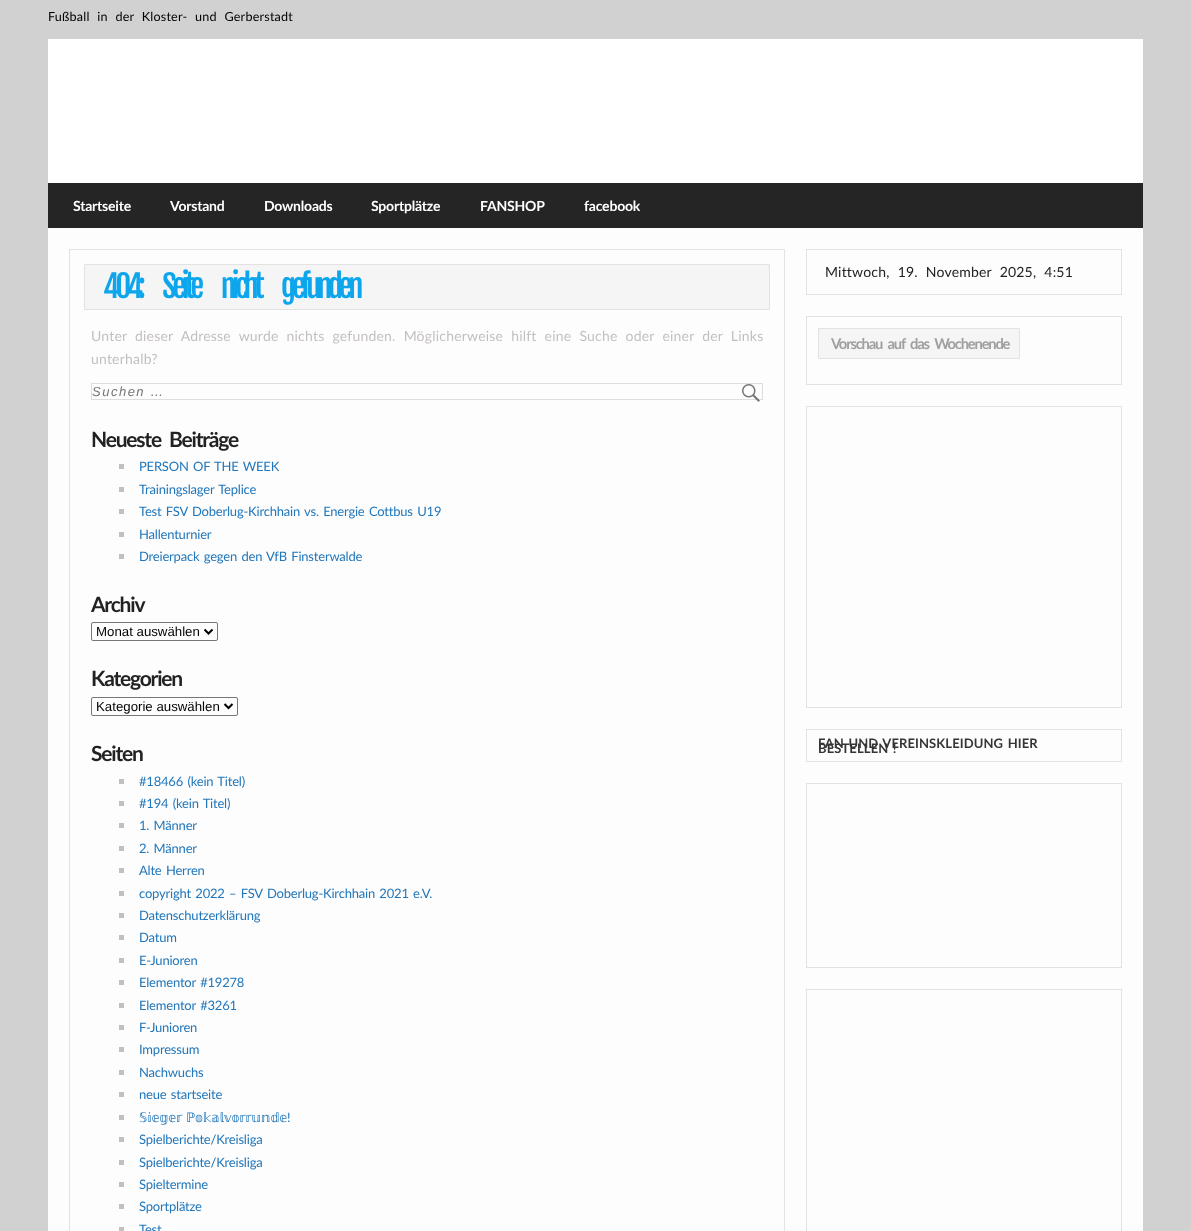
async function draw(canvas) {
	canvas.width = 1191;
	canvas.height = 1231;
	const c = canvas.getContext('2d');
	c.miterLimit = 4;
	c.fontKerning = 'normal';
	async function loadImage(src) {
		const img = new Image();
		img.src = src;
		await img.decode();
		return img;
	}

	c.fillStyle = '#d1d1d1';
	c.fillRect(0, 0, 1191, 1231);
	c.letterSpacing = '0.2px';
	c.wordSpacing = '4.25px';
	c.font = '12.6px Lato';
	c.fillStyle = '#000';
	c.fillText('Fußball in der Kloster- und Gerberstadt', 48, 21);
	c.fillStyle = '#fff';
	c.fillRect(48, 39, 1095, 144);
	c.fillStyle = '#252525';
	c.fillRect(48, 183, 1095, 45);
	c.letterSpacing = '-0.2px';
	c.wordSpacing = '0px';
	c.font = 'bold 14px Lato';
	c.fillStyle = '#fff';
	for (const [text, x, y] of [
		['Startseite', 73, 211],
		['Vorstand', 170, 211],
		['Downloads', 264, 211],
		['Sportplätze', 371, 211],
		['FANSHOP', 480, 211],
		['facebook', 584, 211],
	]) {
		c.fillText(text, x, y);
	}
	c.fillStyle = '#fdfdfd';
	c.fillRect(48, 228, 1095, 1003);
	c.strokeStyle = '#e2e2e2';
	c.strokeRect(69.5, 249.5, 715, 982);
	c.fillStyle = '#f5f5f5';
	c.beginPath();
	c.rect(84.5, 264.5, 685, 45);
	c.fill();
	c.stroke();
	c.letterSpacing = '-4.3px';
	c.wordSpacing = '18.5px';
	c.font = '31px Fjalla One';
	c.fillStyle = '#0da5eb';
	c.fillText('404: Seite nicht gefunden', 103, 298);
	c.letterSpacing = '0.2px';
	c.wordSpacing = '4.25px';
	c.font = '14px Lato';
	c.fillStyle = '#c4bfbf';
	c.fillText('Unter dieser Adresse wurde nichts gefunden. Möglicherweise hilft eine Suche oder einer der Links', 91, 341);
	c.wordSpacing = '0px';
	c.fillText('unterhalb?', 91, 364);
	c.strokeStyle = '#ddd';
	c.strokeRect(91.5, 383.5, 671, 16);
	c.letterSpacing = '1.5px';
	c.font = 'italic 13px Liberation Sans';
	c.fillStyle = '#757575';
	c.fillText('Suchen …', 92, 396);
	c.drawImage(await loadImage('img1.png'), 742, 384, 18, 18);
	c.letterSpacing = '-1.2px';
	c.wordSpacing = '4.25px';
	c.font = 'bold 21px Lato';
	c.fillStyle = '#222';
	c.fillText('Neueste Beiträge', 91, 447);
	c.fillStyle = '#c4bfbf';
	c.fillRect(119, 464, 5, 5);
	c.letterSpacing = '-0.2px';
	c.wordSpacing = '1.25px';
	c.font = '13px Lato';
	c.fillStyle = '#27b';
	c.fillText('PERSON OF THE WEEK', 139, 471);
	c.fillStyle = '#c4bfbf';
	c.fillRect(119, 487, 5, 5);
	c.fillStyle = '#27b';
	c.fillText('Trainingslager Teplice', 139, 494);
	c.fillStyle = '#c4bfbf';
	c.fillRect(119, 509, 5, 5);
	c.fillStyle = '#27b';
	c.fillText('Test FSV Doberlug-Kirchhain vs. Energie Cottbus U19', 139, 516);
	c.fillStyle = '#c4bfbf';
	c.fillRect(119, 532, 5, 5);
	c.wordSpacing = '0px';
	c.fillStyle = '#27b';
	c.fillText('Hallenturnier', 139, 539);
	c.fillStyle = '#c4bfbf';
	c.fillRect(119, 554, 5, 5);
	c.wordSpacing = '1.25px';
	c.fillStyle = '#27b';
	c.fillText('Dreierpack gegen den VfB Finsterwalde', 139, 561);
	c.letterSpacing = '-1.2px';
	c.wordSpacing = '0px';
	c.font = 'bold 21px Lato';
	c.fillStyle = '#222';
	c.fillText('Archiv', 91, 612);
	c.beginPath();
	c.roundRect(91.5, 622.5, 126, 18, 1.5);
	c.strokeStyle = '#767676';
	c.stroke();
	c.beginPath();
	c.moveTo(204.5, 629.5);
	c.lineTo(208.5, 633.5);
	c.lineTo(212.5, 629.5);
	c.strokeStyle = '#000';
	c.lineWidth = 2;
	c.stroke();
	c.letterSpacing = '0px';
	c.font = '13.25px Liberation Sans';
	c.fillStyle = '#000';
	c.fillText('Monat auswählen', 96, 636);
	c.letterSpacing = '-1.2px';
	c.font = 'bold 21px Lato';
	c.fillStyle = '#222';
	c.fillText('Kategorien', 91, 686);
	c.beginPath();
	c.roundRect(91.5, 697.5, 146, 18, 1.5);
	c.strokeStyle = '#767676';
	c.lineWidth = 1;
	c.stroke();
	c.beginPath();
	c.moveTo(224.5, 704);
	c.lineTo(228.5, 708);
	c.lineTo(232.5, 704);
	c.strokeStyle = '#000';
	c.lineWidth = 2;
	c.stroke();
	c.letterSpacing = '0px';
	c.font = '13.25px Liberation Sans';
	c.fillStyle = '#000';
	c.fillText('Kategorie auswählen', 96, 711);
	c.letterSpacing = '-1.2px';
	c.font = 'bold 21px Lato';
	c.fillStyle = '#222';
	c.fillText('Seiten', 91, 761);
	c.fillStyle = '#c4bfbf';
	c.fillRect(119, 779, 5, 5);
	c.letterSpacing = '-0.2px';
	c.wordSpacing = '1.25px';
	c.font = '13px Lato';
	c.fillStyle = '#27b';
	c.fillText('#18466 (kein Titel)', 139, 786);
	c.fillStyle = '#c4bfbf';
	c.fillRect(119, 801, 5, 5);
	c.fillStyle = '#27b';
	c.fillText('#194 (kein Titel)', 139, 808);
	c.fillStyle = '#c4bfbf';
	c.fillRect(119, 823, 5, 5);
	c.fillStyle = '#27b';
	c.fillText('1. Männer', 139, 830);
	c.fillStyle = '#c4bfbf';
	c.fillRect(119, 846, 5, 5);
	c.fillStyle = '#27b';
	c.fillText('2. Männer', 139, 853);
	c.fillStyle = '#c4bfbf';
	c.fillRect(119, 868, 5, 5);
	c.fillStyle = '#27b';
	c.fillText('Alte Herren', 139, 875);
	c.fillStyle = '#c4bfbf';
	c.fillRect(119, 891, 5, 5);
	c.fillStyle = '#27b';
	c.fillText('copyright 2022 – FSV Doberlug-Kirchhain 2021 e.V.', 139, 898);
	c.fillStyle = '#c4bfbf';
	c.fillRect(119, 913, 5, 5);
	c.wordSpacing = '0px';
	c.fillStyle = '#27b';
	c.fillText('Datenschutzerklärung', 139, 920);
	c.fillStyle = '#c4bfbf';
	c.fillRect(119, 935, 5, 5);
	c.fillStyle = '#27b';
	c.fillText('Datum', 139, 942);
	c.fillStyle = '#c4bfbf';
	c.fillRect(119, 958, 5, 5);
	c.fillStyle = '#27b';
	c.fillText('E-Junioren', 139, 965);
	c.fillStyle = '#c4bfbf';
	c.fillRect(119, 980, 5, 5);
	c.wordSpacing = '1.25px';
	c.fillStyle = '#27b';
	c.fillText('Elementor #19278', 139, 987);
	c.fillStyle = '#c4bfbf';
	c.fillRect(119, 1003, 5, 5);
	c.fillStyle = '#27b';
	c.fillText('Elementor #3261', 139, 1010);
	c.fillStyle = '#c4bfbf';
	c.fillRect(119, 1025, 5, 5);
	c.wordSpacing = '0px';
	c.fillStyle = '#27b';
	c.fillText('F-Junioren', 139, 1032);
	c.fillStyle = '#c4bfbf';
	c.fillRect(119, 1047, 5, 5);
	c.fillStyle = '#27b';
	c.fillText('Impressum', 139, 1054);
	c.fillStyle = '#c4bfbf';
	c.fillRect(119, 1070, 5, 5);
	c.fillStyle = '#27b';
	c.fillText('Nachwuchs', 139, 1077);
	c.fillStyle = '#c4bfbf';
	c.fillRect(119, 1092, 5, 5);
	c.wordSpacing = '1.25px';
	c.fillStyle = '#27b';
	c.fillText('neue startseite', 139, 1099);
	c.fillStyle = '#c4bfbf';
	c.fillRect(119, 1115, 5, 5);
	c.wordSpacing = '0px';
	c.font = '13px DejaVu Sans';
	c.fillStyle = '#27b';
	c.fillText('𝕊𝕚𝕖𝕘𝕖𝕣 ℙ𝕠𝕜𝕒𝕝𝕧𝕠𝕣𝕣𝕦𝕟𝕕𝕖', 139, 1122);
	c.font = '13px Lato';
	c.fillText('!', 287, 1122);
	c.fillStyle = '#c4bfbf';
	c.fillRect(119, 1137, 5, 5);
	c.fillStyle = '#27b';
	c.fillText('Spielberichte/Kreisliga', 139, 1144);
	c.fillStyle = '#c4bfbf';
	c.fillRect(119, 1160, 5, 5);
	c.fillStyle = '#27b';
	c.fillText('Spielberichte/Kreisliga', 139, 1167);
	c.fillStyle = '#c4bfbf';
	c.fillRect(119, 1182, 5, 5);
	c.fillStyle = '#27b';
	c.fillText('Spieltermine', 139, 1189);
	c.fillStyle = '#c4bfbf';
	c.fillRect(119, 1204, 5, 5);
	c.fillStyle = '#27b';
	c.fillText('Sportplätze', 139, 1211);
	c.fillStyle = '#c4bfbf';
	c.fillRect(119, 1227, 5, 4);
	c.fillStyle = '#27b';
	c.fillText('Test', 139, 1234);
	c.strokeStyle = '#e2e2e2';
	c.lineWidth = 1;
	c.strokeRect(806.5, 249.5, 315, 45);
	c.letterSpacing = '0.2px';
	c.wordSpacing = '4.25px';
	c.font = '14px Lato';
	c.fillStyle = '#222';
	c.fillText('Mittwoch, 19. November 2025, 4:51', 825, 277);
	c.strokeRect(806.5, 316.5, 315, 68);
	c.fillStyle = '#f5f5f5';
	c.beginPath();
	c.rect(818.5, 328.5, 201, 30);
	c.fill();
	c.stroke();
	c.letterSpacing = '-1.2px';
	c.wordSpacing = '3px';
	c.font = 'bold 14.75px Lato';
	c.fillStyle = '#9f9f9f';
	c.fillText('Vorschau auf das Wochenende', 831, 349);
	c.strokeRect(806.5, 406.5, 315, 301);
	c.strokeRect(806.5, 729.5, 315, 32);
	c.letterSpacing = '0.1px';
	c.wordSpacing = '1.25px';
	c.font = 'bold 13px Lato';
	c.fillStyle = '#353535';
	c.fillText('FAN UND VEREINSKLEIDUNG HIER', 818, 748);
	c.fillText('BESTELLEN !', 818, 753);
	c.strokeRect(806.5, 783.5, 315, 184);
	c.strokeRect(806.5, 989.5, 315, 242);
}

draw(document.querySelector('canvas'));
